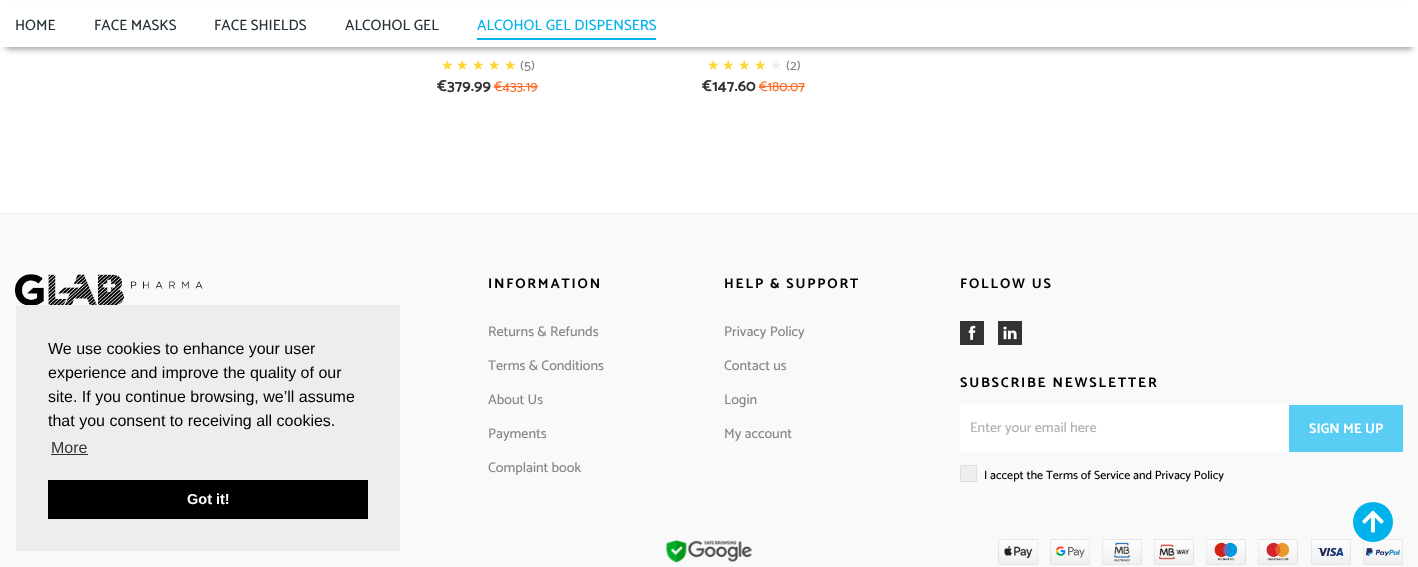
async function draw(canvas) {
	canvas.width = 1418;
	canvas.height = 567;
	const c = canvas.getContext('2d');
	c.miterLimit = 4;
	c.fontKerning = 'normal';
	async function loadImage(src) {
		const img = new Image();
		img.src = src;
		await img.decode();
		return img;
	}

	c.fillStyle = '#fff';
	c.fillRect(0, 0, 1418, 567);
	c.fillStyle = '#00000066';
	c.filter = 'blur(3px)';
	c.beginPath();
	c.rect(6, 14, 1406, 35);
	c.fill();
	c.filter = 'none';
	c.fillStyle = '#fff';
	c.fillRect(0, 8, 1418, 39);
	c.font = '500 15px Catamaran';
	c.fillStyle = '#253237';
	for (const [text, x, y] of [
		['HOME', 15, 30],
		['FACE MASKS', 94, 30],
		['FACE SHIELDS', 214, 30],
		['ALCOHOL GEL', 345, 30],
	]) {
		c.fillText(text, x, y);
	}
	c.fillStyle = '#00b2ec';
	c.fillRect(477, 38, 179, 2);
	c.fillText('ALCOHOL GEL DISPENSERS', 477, 30);
	c.font = '14px DejaVu Sans';
	c.fillStyle = '#fdd835';
	for (const [text, x, y] of [
		['★', 441, 70],
		['★', 456, 70],
		['★', 472, 70],
		['★', 488, 70],
		['★', 504, 70],
	]) {
		c.fillText(text, x, y);
	}
	c.font = '500 14px Catamaran';
	c.fillStyle = '#888';
	c.fillText('(5)', 520, 70);
	c.font = 'bold 16px Catamaran';
	c.fillStyle = '#333';
	c.fillText('€379.99', 437, 91);
	c.font = '500 14px Catamaran';
	c.fillStyle = '#ff6c28';
	c.fillText('€433.19', 494, 91);
	c.fillRect(494, 86, 44, 1);
	c.font = '14px DejaVu Sans';
	c.fillStyle = '#fdd835';
	for (const [text, x, y] of [
		['★', 707, 70],
		['★', 722, 70],
		['★', 738, 70],
		['★', 754, 70],
	]) {
		c.fillText(text, x, y);
	}
	c.fillStyle = '#ededed';
	c.fillText('★', 770, 70);
	c.font = '500 14px Catamaran';
	c.fillStyle = '#888';
	c.fillText('(2)', 786, 70);
	c.font = 'bold 16px Catamaran';
	c.fillStyle = '#333';
	c.fillText('€147.60', 702, 91);
	c.font = '500 14px Catamaran';
	c.fillStyle = '#ff6c28';
	c.fillText('€180.07', 759, 91);
	for (const [x, y, w, h, color] of [
		[759, 86, 46, 1, '#ff6c28'],
		[0, 214, 1418, 353, '#f9f9f9'],
		[0, 213, 1418, 1, '#f3f3f3'],
	]) {
		c.fillStyle = color;
		c.fillRect(x, y, w, h);
	}
	c.drawImage(await loadImage('img1.png'), 15, 274, 188, 31);
	c.letterSpacing = '1.8px';
	c.font = 'bold 14px Catamaran';
	c.fillStyle = '#000';
	c.fillText('INFORMATION', 488, 288);
	c.letterSpacing = '0px';
	c.font = '500 14px Catamaran';
	c.fillStyle = '#888';
	for (const [text, x, y] of [
		['Returns & Refunds', 488, 336],
		['Terms & Conditions', 488, 370],
		['About Us', 488, 404],
		['Payments', 488, 438],
		['Complaint book', 488, 472],
	]) {
		c.fillText(text, x, y);
	}
	c.letterSpacing = '1.8px';
	c.font = 'bold 14px Catamaran';
	c.fillStyle = '#000';
	c.fillText('HELP & SUPPORT', 724, 288);
	c.letterSpacing = '0px';
	c.font = '500 14px Catamaran';
	c.fillStyle = '#888';
	for (const [text, x, y] of [
		['Privacy Policy', 724, 336],
		['Contact us', 724, 370],
		['Login', 724, 404],
		['My account', 724, 438],
	]) {
		c.fillText(text, x, y);
	}
	c.letterSpacing = '1.8px';
	c.font = 'bold 14px Catamaran';
	c.fillStyle = '#000';
	c.fillText('FOLLOW US', 960, 288);
	c.fillStyle = '#333';
	c.fillRect(960, 321, 24, 24);
	c.drawImage(await loadImage('img2.png'), 968, 325, 8, 15);
	c.fillRect(998, 321, 24, 24);
	c.drawImage(await loadImage('img3.png'), 1003, 326, 14, 14);
	c.fillStyle = '#000';
	c.fillText('SUBSCRIBE NEWSLETTER', 960, 387);
	c.fillStyle = '#fff';
	c.fillRect(960, 405, 329, 47);
	c.letterSpacing = '0px';
	c.font = '500 14px Catamaran';
	c.fillStyle = '#b1b1b1';
	c.fillText('Enter your email here', 970, 432);
	c.fillStyle = '#59cdf3';
	c.fillRect(1289, 405, 114, 47);
	c.font = 'bold 14px Catamaran';
	c.fillStyle = '#fff';
	c.fillText('SIGN ME UP', 1309, 433);
	c.fillStyle = '#efefef';
	c.beginPath();
	c.rect(960.5, 465.5, 16, 16);
	c.fill();
	c.strokeStyle = '#dedede';
	c.stroke();
	c.font = '500 12px Catamaran';
	c.fillStyle = '#000';
	c.fillText('I accept the Terms of Service and Privacy Policy', 984, 479);
	c.drawImage(await loadImage('img4.png'), 665, 540, 88, 23);
	c.drawImage(await loadImage('img5.png'), 998, 539, 405, 26);
	c.fillStyle = '#ededed';
	c.fillRect(16, 305, 384, 246);
	c.font = '16px Liberation Sans';
	c.fillStyle = '#000';
	for (const [text, x, y] of [
		['We use cookies to enhance your user', 48, 354],
		['experience and improve the quality of our', 48, 378],
		['site. If you continue browsing, we’ll assume', 48, 402],
		['that you consent to receiving all cookies.', 48, 426],
	]) {
		c.fillText(text, x, y);
	}
	c.fillStyle = '#333';
	c.fillText('More', 51, 453);
	c.fillStyle = '#2f2f2f';
	c.fillRect(51, 454, 37, 1);
	c.fillStyle = '#000';
	c.fillRect(48, 480, 320, 39);
	c.font = 'bold 14.5px Liberation Sans';
	c.fillStyle = '#fff';
	c.fillText('Got it!', 187, 504);
	c.fillStyle = '#00b2ec';
	c.beginPath();
	c.arc(1373, 522, 20, 0, 2 * Math.PI);
	c.fill();
	c.drawImage(await loadImage('img6.png'), 1362, 510, 22, 23);
}

draw(document.querySelector('canvas'));
